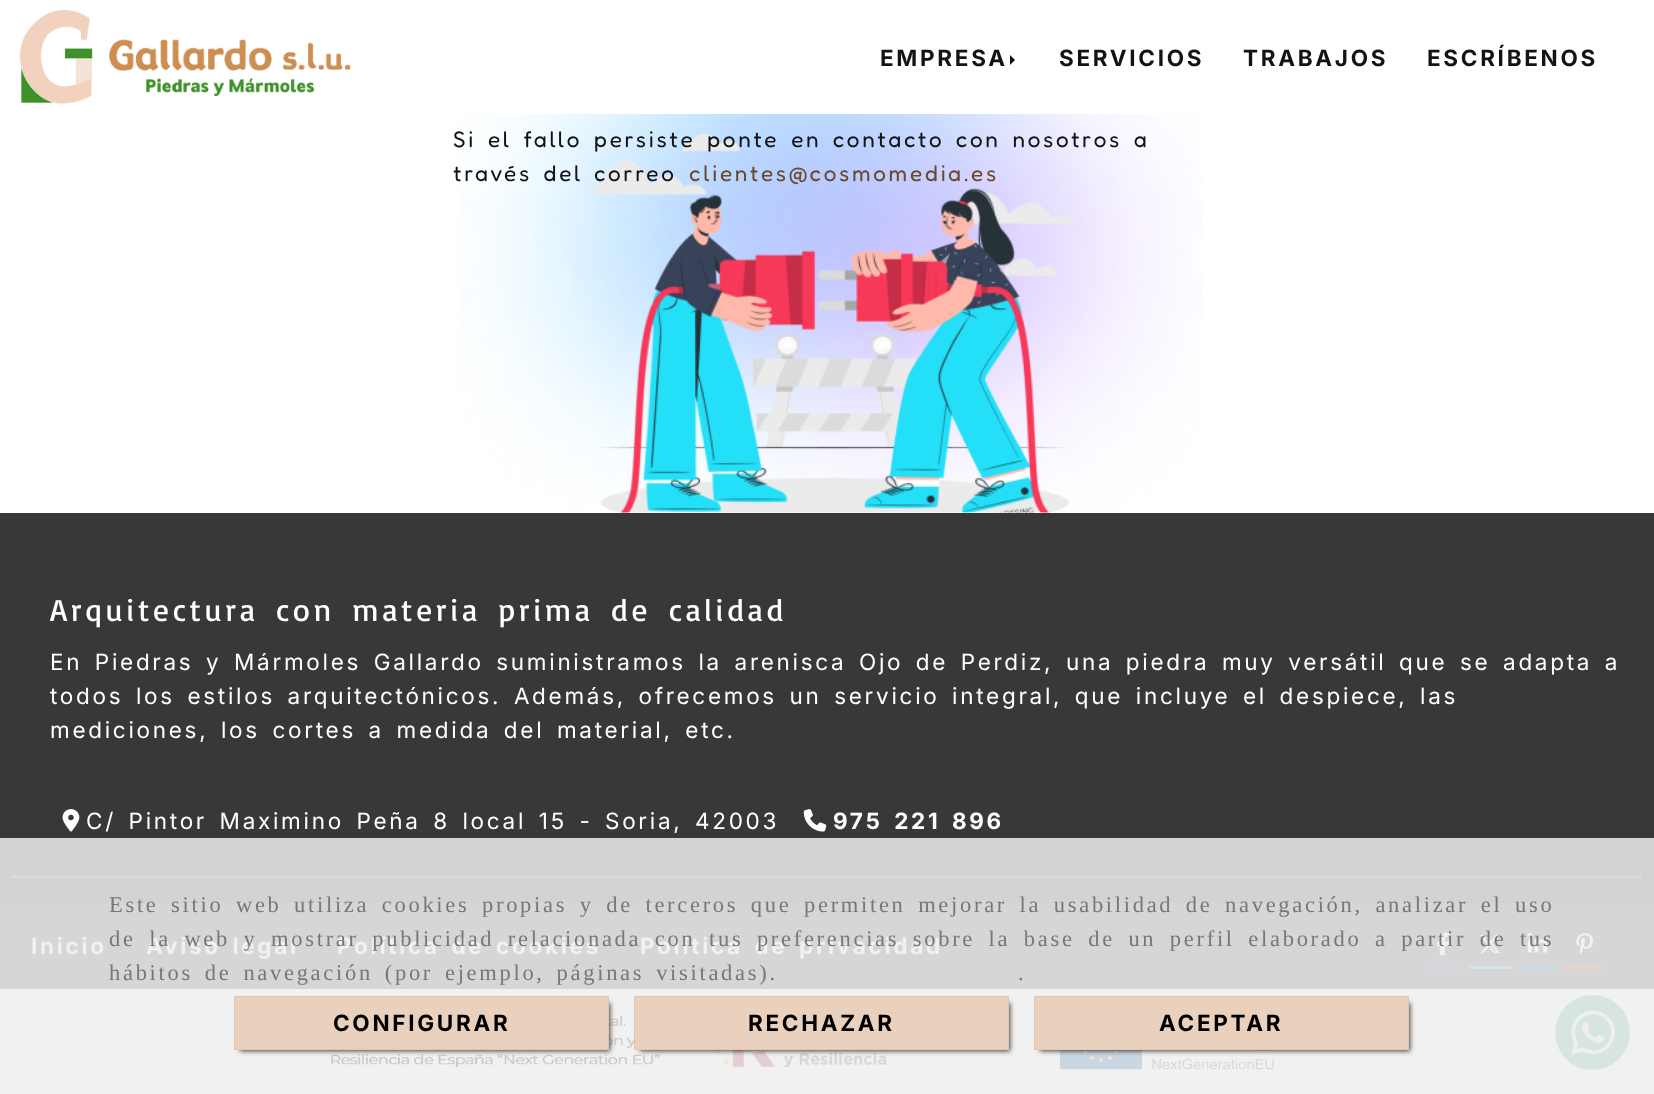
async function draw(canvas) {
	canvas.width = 1654;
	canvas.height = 1094;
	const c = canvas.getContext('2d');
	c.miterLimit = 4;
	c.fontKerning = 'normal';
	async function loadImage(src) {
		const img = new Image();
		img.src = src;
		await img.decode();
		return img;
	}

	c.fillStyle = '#fff';
	c.fillRect(0, 0, 1654, 1094);
	c.fillStyle = '#f1f1f1';
	c.fillRect(0, 989, 1654, 105);
	c.drawImage(await loadImage('img1.png'), 19, 9, 332, 95);
	c.letterSpacing = '2.7px';
	c.font = 'bold 22.5px Inter';
	c.fillStyle = '#131313';
	c.fillText('EMPRESA', 880, 66);
	c.beginPath();
	c.moveTo(1010, 65);
	c.lineTo(1010, 55);
	c.lineTo(1015, 60);
	c.closePath();
	c.fill();
	for (const [text, x, y] of [
		['SERVICIOS', 1059, 66],
		['TRABAJOS', 1243, 66],
		['ESCRÍBENOS', 1427, 66],
	]) {
		c.fillText(text, x, y);
	}
	c.drawImage(await loadImage('img2.png'), 458, 114, 744, 399);
	c.wordSpacing = '3.6px';
	c.font = '22.5px Fredoka';
	c.fillText('Si el fallo persiste ponte en contacto con nosotros a', 453, 147);
	c.wordSpacing = '3px';
	c.fillText('través del correo', 453, 181);
	c.wordSpacing = '0px';
	c.fillStyle = '#6a482b';
	c.fillText('clientes@cosmomedia.es', 689, 181);
	c.fillStyle = '#383838';
	c.fillRect(0, 513, 1654, 325);
	c.fillStyle = '#d3d3d3';
	c.fillRect(0, 838, 1654, 65);
	c.letterSpacing = '3.75px';
	c.wordSpacing = '5px';
	c.font = '31.25px Basic';
	c.fillStyle = '#fff';
	c.fillText('Arquitectura con materia prima de calidad', 50, 621);
	c.letterSpacing = '2.7px';
	c.wordSpacing = '3.6px';
	c.font = '22.5px Inter';
	for (const [text, x, y] of [
		['En Piedras y Mármoles Gallardo suministramos la arenisca Ojo de Perdiz, una piedra muy versátil que se adapta a', 50, 670],
		['todos los estilos arquitectónicos. Además, ofrecemos un servicio integral, que incluye el despiece, las', 50, 704],
		['mediciones, los cortes a medida del material, etc.', 50, 738],
	]) {
		c.fillText(text, x, y);
	}
	c.drawImage(await loadImage('img3.png'), 62, 809, 18, 23);
	c.fillText('C/ Pintor Maximino Peña 8 local 15 -', 86, 829);
	c.wordSpacing = '0px';
	c.fillText('Soria,', 605, 829);
	c.fillText('42003', 695, 829);
	c.drawImage(await loadImage('img4.png'), 803, 809, 24, 23);
	c.wordSpacing = '3.6px';
	c.font = 'bold 22.5px Inter';
	c.fillText('975 221 896', 833, 829);
	c.beginPath();
	c.moveTo(12.5, 877);
	c.lineTo(1642.5, 877);
	c.strokeStyle = '#f1f1f1';
	c.lineWidth = 1.2;
	c.setLineDash([1.25, 1.25]);
	c.stroke();
	c.fillStyle = '#d6d6d6';
	c.fillRect(0, 903, 1654, 86);
	c.wordSpacing = '4.25px';
	c.font = '22.5px Liberation Serif';
	c.fillStyle = '#777';
	c.fillText('Este sitio web utiliza cookies propias y de terceros que permiten mejorar la usabilidad de navegación, analizar el uso', 109, 912);
	c.wordSpacing = '3.6px';
	c.font = 'bold 22.5px Inter';
	c.fillStyle = '#f1f1f1';
	for (const [text, x, y] of [
		['Aviso legal', 146, 954],
		['Política de cookies', 337, 954],
		['Política de privacidad', 640, 954],
	]) {
		c.fillText(text, x, y);
	}
	c.drawImage(await loadImage('img5.png'), 1436, 932, 14, 24);
	c.drawImage(await loadImage('img6.png'), 1480, 934, 20, 20);
	c.drawImage(await loadImage('img7.png'), 1527, 932, 21, 21);
	c.wordSpacing = '5.25px';
	c.font = '22.5px Liberation Serif';
	c.fillStyle = '#777';
	c.fillText('de la web y mostrar publicidad relacionada con tus preferencias sobre la base de un perfil elaborado a partir de tus', 109, 946);
	c.wordSpacing = '3.6px';
	c.fillText('hábitos de navegación (por ejemplo, páginas visitadas).', 109, 980);
	c.wordSpacing = '0px';
	c.fillText('.', 1018, 980);
	c.drawImage(await loadImage('img10.png'), 331, 1015, 329, 53);
	c.fillStyle = '#000000bf';
	c.filter = 'blur(2.5px)';
	c.beginPath();
	c.rect(240, 1003, 370, 48);
	c.fill();
	c.filter = 'none';
	c.fillStyle = '#e9d1bd';
	c.beginPath();
	c.rect(234.5, 996.5, 374, 53);
	c.fill();
	c.strokeStyle = '#e3c4aa';
	c.lineWidth = 1;
	c.setLineDash([]);
	c.stroke();
	c.font = 'bold 22.5px Inter';
	c.fillStyle = '#000';
	c.fillText('CONFIGURAR', 333, 1031);
	c.drawImage(await loadImage('img11.png'), 713, 1050, 174, 18);
	c.fillStyle = '#000000bf';
	c.filter = 'blur(2.5px)';
	c.beginPath();
	c.rect(640, 1003, 370, 48);
	c.fill();
	c.filter = 'none';
	c.fillStyle = '#e9d1bd';
	c.beginPath();
	c.rect(634.5, 996.5, 374, 53);
	c.fill();
	c.stroke();
	c.fillStyle = '#000';
	c.fillText('RECHAZAR', 748, 1031);
	c.drawImage(await loadImage('img12.png'), 1059, 1050, 215, 20);
	c.fillStyle = '#000000bf';
	c.filter = 'blur(2.5px)';
	c.beginPath();
	c.rect(1040, 1003, 370, 48);
	c.fill();
	c.filter = 'none';
	c.fillStyle = '#e9d1bd';
	c.beginPath();
	c.rect(1034.5, 996.5, 374, 53);
	c.fill();
	c.stroke();
	c.fillStyle = '#000';
	c.fillText('ACEPTAR', 1159, 1031);
	c.fillStyle = '#f1f1f1';
	c.fillText('Inicio', 31, 954);
	for (const [x, y, w, h, color] of [
		[1424, 966, 40, 3, '#d3d7e1'],
		[1470, 966, 41, 3, '#d8e4eb'],
		[1518, 966, 40, 3, '#cbdce5'],
		[1564, 966, 41, 3, '#ebd3cd'],
	]) {
		c.fillStyle = color;
		c.fillRect(x, y, w, h);
	}
	c.drawImage(await loadImage('img8.png'), 1576, 933, 18, 22);
	c.fillStyle = '#d6e6de';
	c.beginPath();
	c.arc(1592.5, 1032.5, 37.5, 0, 2 * Math.PI);
	c.fill();
	c.drawImage(await loadImage('img9.png'), 1571, 1010, 44, 45);
}

draw(document.querySelector('canvas'));
